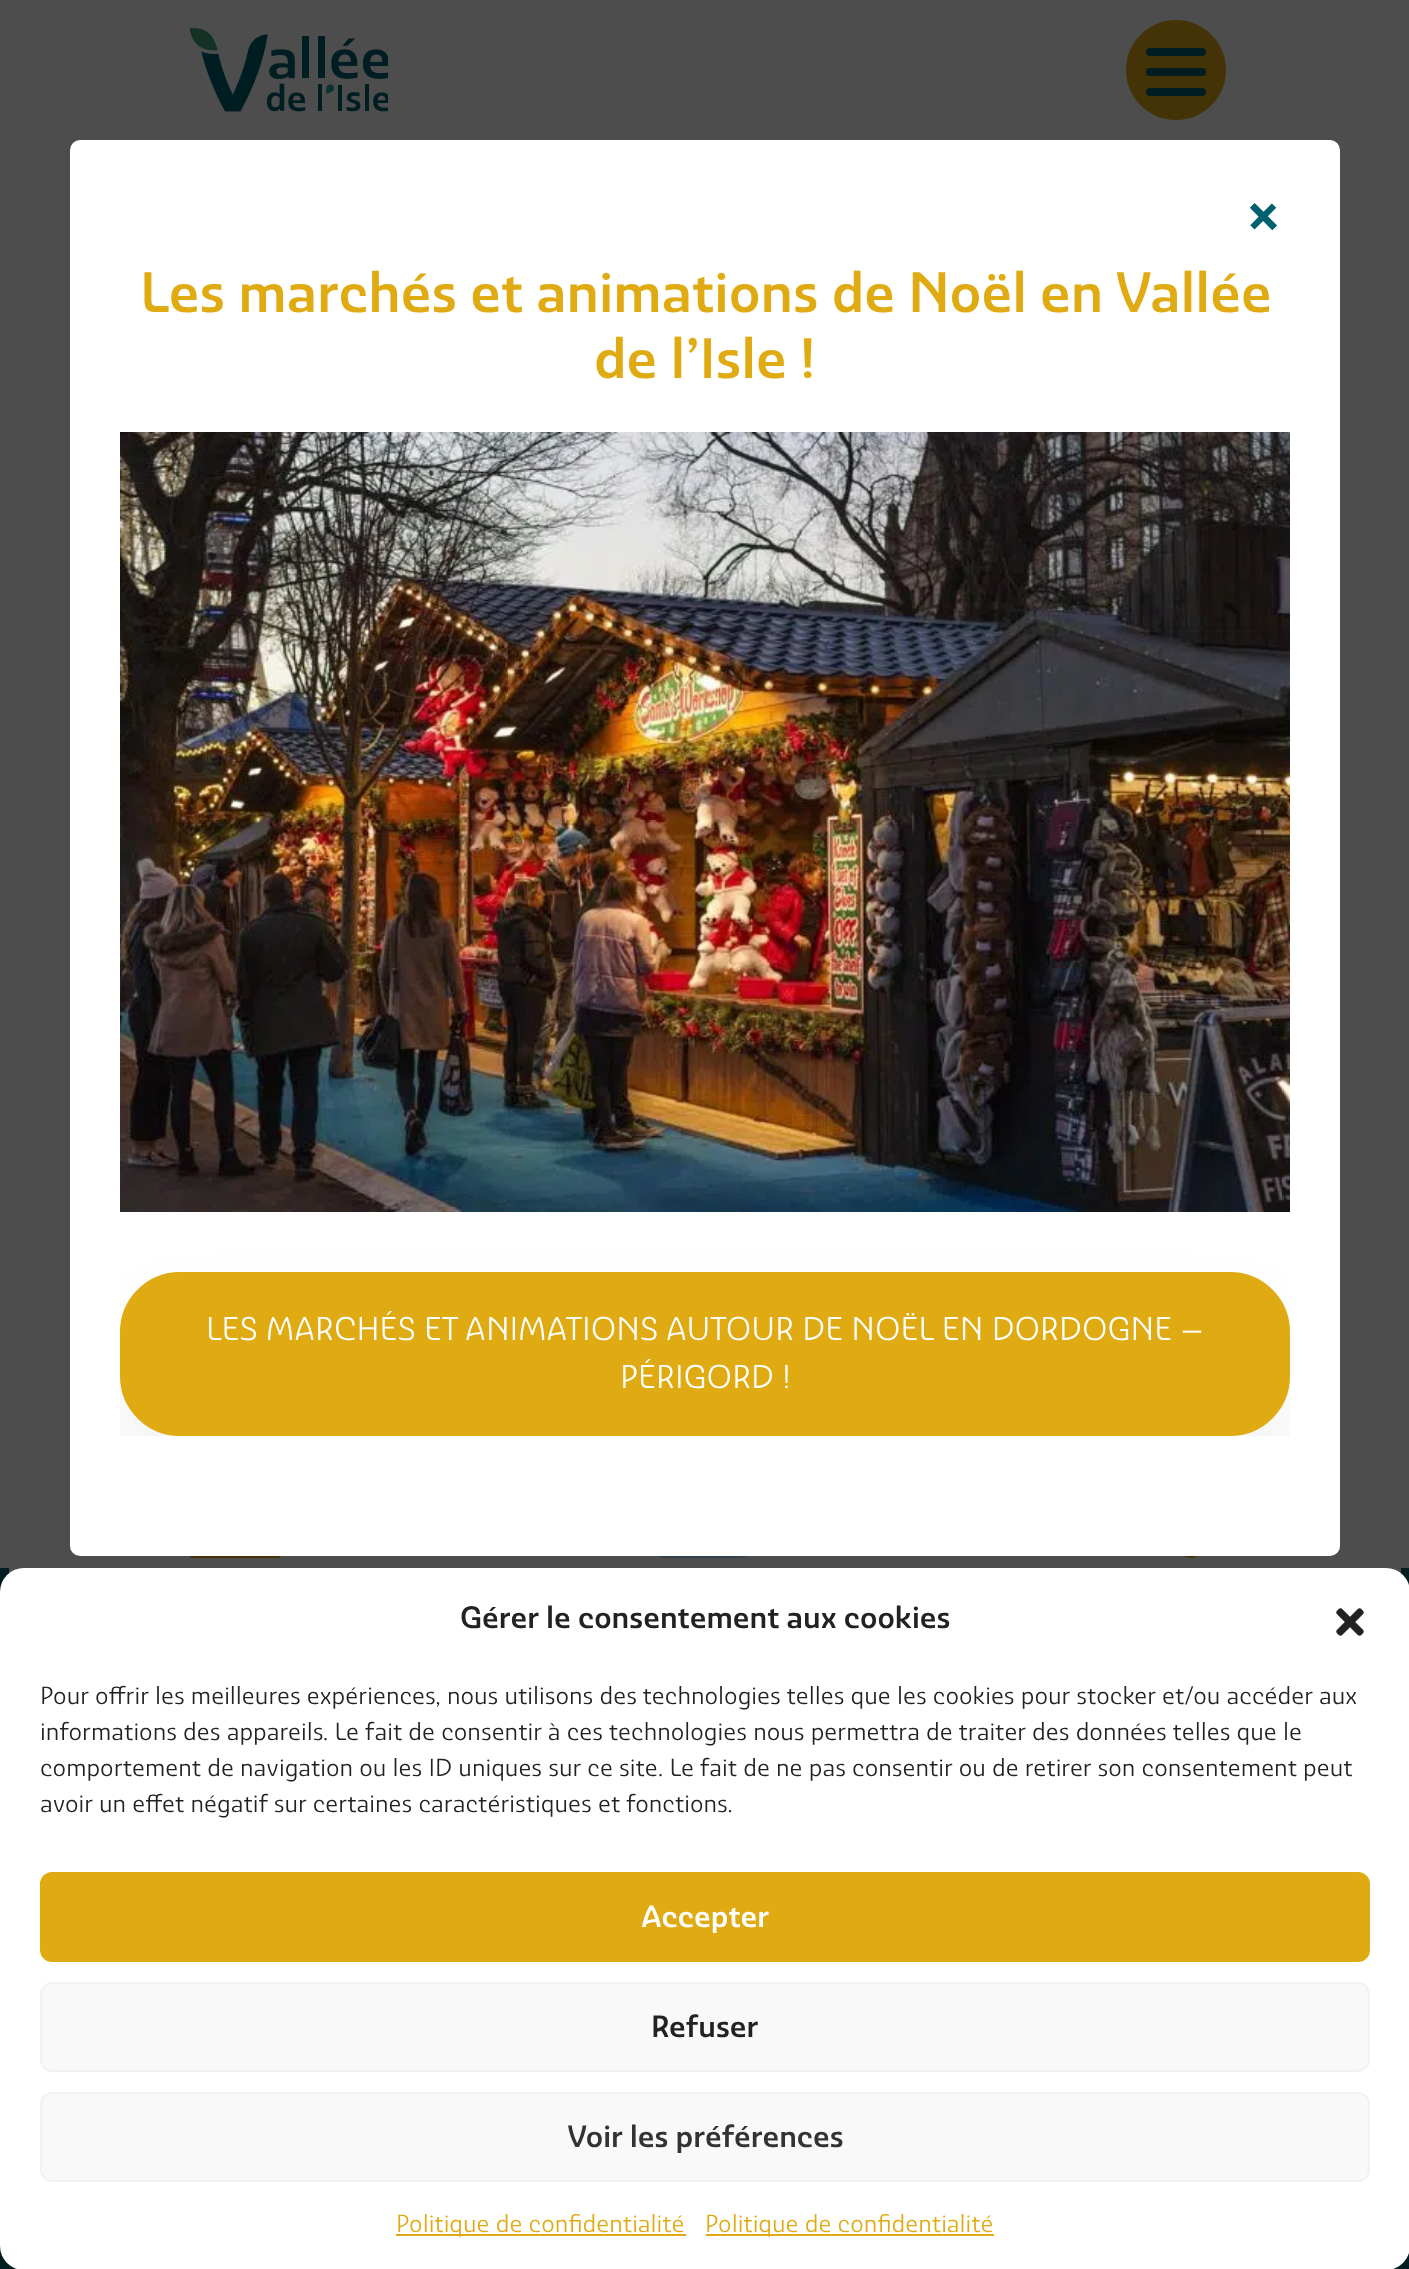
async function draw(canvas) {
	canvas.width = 1409;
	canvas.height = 2269;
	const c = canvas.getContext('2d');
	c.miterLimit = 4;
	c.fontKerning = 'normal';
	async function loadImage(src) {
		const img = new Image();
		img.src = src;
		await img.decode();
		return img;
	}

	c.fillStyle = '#4d4d4d';
	c.fillRect(0, 0, 1409, 2269);
	c.drawImage(await loadImage('img1.png'), 190, 28, 198, 84);
	c.fillStyle = '#433306';
	c.beginPath();
	c.arc(1176, 70, 50, 0, 2 * Math.PI);
	c.fill();
	c.fillStyle = '#001d21';
	c.beginPath();
	c.roundRect(1146, 88, 60, 8, 4);
	c.fill();
	c.beginPath();
	c.roundRect(1146, 48, 60, 8, 4);
	c.fill();
	c.beginPath();
	c.roundRect(1146, 68, 60, 8, 4);
	c.fill();
	c.fillRect(0, 1568, 1409, 701);
	c.fillStyle = '#4d4d4d';
	c.beginPath();
	c.moveTo(9, 1566);
	c.lineTo(9, 1646);
	c.lineTo(96, 1636);
	c.bezierCurveTo(164, 1627, 233, 1618, 301, 1607);
	c.lineTo(400, 1591);
	c.bezierCurveTo(430, 1586, 461, 1580, 492, 1578);
	c.bezierCurveTo(515, 1577, 538, 1577, 562, 1578);
	c.lineTo(623, 1583);
	c.bezierCurveTo(653, 1585, 682, 1588, 712, 1589);
	c.lineTo(793, 1590);
	c.bezierCurveTo(873, 1590, 953, 1588, 1032, 1592);
	c.bezierCurveTo(1061, 1594, 1089, 1596, 1117, 1599);
	c.lineTo(1216, 1610);
	c.lineTo(1401, 1634);
	c.lineTo(1401, 1566);
	c.closePath();
	c.fill();
	c.beginPath();
	c.roundRect(24, 1458, 422, 246, 40);
	c.fill();
	c.fillStyle = '#31404a';
	c.beginPath();
	c.moveTo(739, 1515);
	c.lineTo(735, 1516);
	c.bezierCurveTo(733, 1505, 721, 1499, 711, 1503);
	c.bezierCurveTo(700, 1475, 657, 1491, 667, 1519);
	c.bezierCurveTo(650, 1520, 642, 1541, 654, 1552);
	c.bezierCurveTo(656, 1555, 660, 1557, 663, 1558);
	c.lineTo(739, 1558);
	c.bezierCurveTo(767, 1557, 767, 1515, 739, 1515);
	c.closePath();
	c.fill();
	c.fillStyle = '#4d4d4d';
	c.beginPath();
	c.roundRect(964, 1458, 422, 246, 40);
	c.fill();
	c.fillStyle = '#fff';
	c.beginPath();
	c.roundRect(70, 140, 1270, 1416, 10);
	c.fill();
	c.font = 'bold 60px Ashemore';
	c.fillStyle = '#00606e';
	c.fillText('×', 1247, 238);
	c.font = '500 55.1px Ashemore';
	c.fillStyle = '#e0aa13';
	c.fillText('Les marchés et animations de Noël en Vallée', 140, 312);
	c.fillText('de l’Isle !', 594, 378);
	c.drawImage(await loadImage('img2.png'), 120, 432, 1170, 780);
	c.drawImage(await loadImage('img3.png'), 190, 1556, 90, 2);
	c.drawImage(await loadImage('img4.png'), 1183, 1556, 13, 2);
	c.save();
	c.beginPath();
	c.rect(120, 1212, 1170, 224);
	c.clip();
	c.fillStyle = '#0000000d';
	c.filter = 'blur(35px)';
	c.beginPath();
	c.roundRect(120, 1312, 1170, 164, 60);
	c.fill();
	c.filter = 'none';
	c.restore();
	c.beginPath();
	c.roundRect(122, 1274, 1166, 160, 58);
	c.fill();
	c.strokeStyle = '#e0aa13';
	c.lineWidth = 4;
	c.stroke();
	c.font = '32px Ashemore';
	c.fillStyle = '#fff';
	c.fillText('LES MARCHÉS ET ANIMATIONS AUTOUR DE NOËL EN DORDOGNE –', 206, 1340);
	c.fillText('PÉRIGORD !', 620, 1388);
	c.beginPath();
	c.roundRect(0, 1568, 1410, 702, 24);
	c.fill();
	c.font = '500 30px Ashemore';
	c.fillStyle = '#222';
	c.fillText('Gérer le consentement aux cookies', 460, 1628);
	c.drawImage(await loadImage('img5.png'), 1336, 1608, 28, 28);
	c.font = '24px Ashemore';
	for (const [text, x, y] of [
		['Pour offrir les meilleures expériences, nous utilisons des technologies telles que les cookies pour stocker et/ou accéder aux', 40, 1704],
		['informations des appareils. Le fait de consentir à ces technologies nous permettra de traiter des données telles que le', 40, 1740],
		['comportement de navigation ou les ID uniques sur ce site. Le fait de ne pas consentir ou de retirer son consentement peut', 40, 1776],
		['avoir un effet négatif sur certaines caractéristiques et fonctions.', 40, 1812],
	]) {
		c.fillText(text, x, y);
	}
	c.fillStyle = '#e0aa13';
	c.beginPath();
	c.roundRect(41, 1873, 1328, 88, 11);
	c.fill();
	c.lineWidth = 2;
	c.stroke();
	c.font = '500 30px Ashemore';
	c.fillStyle = '#fff';
	c.fillText('Accepter', 641, 1927);
	c.fillStyle = '#f9f9f9';
	c.beginPath();
	c.roundRect(41, 1983, 1328, 88, 11);
	c.fill();
	c.strokeStyle = '#f2f2f2';
	c.stroke();
	c.fillStyle = '#222';
	c.fillText('Refuser', 651, 2037);
	c.fillStyle = '#f9f9f9';
	c.beginPath();
	c.roundRect(41, 2093, 1328, 88, 11);
	c.fill();
	c.stroke();
	c.fillStyle = '#333';
	c.fillText('Voir les préférences', 567, 2147);
	c.fillStyle = '#e0aa13';
	c.fillRect(396, 2234, 290, 2);
	c.font = '24px Ashemore';
	c.fillText('Politique de confidentialité', 396, 2232);
	c.fillRect(706, 2234, 288, 2);
	c.fillText('Politique de confidentialité', 705, 2232);
}

draw(document.querySelector('canvas'));
